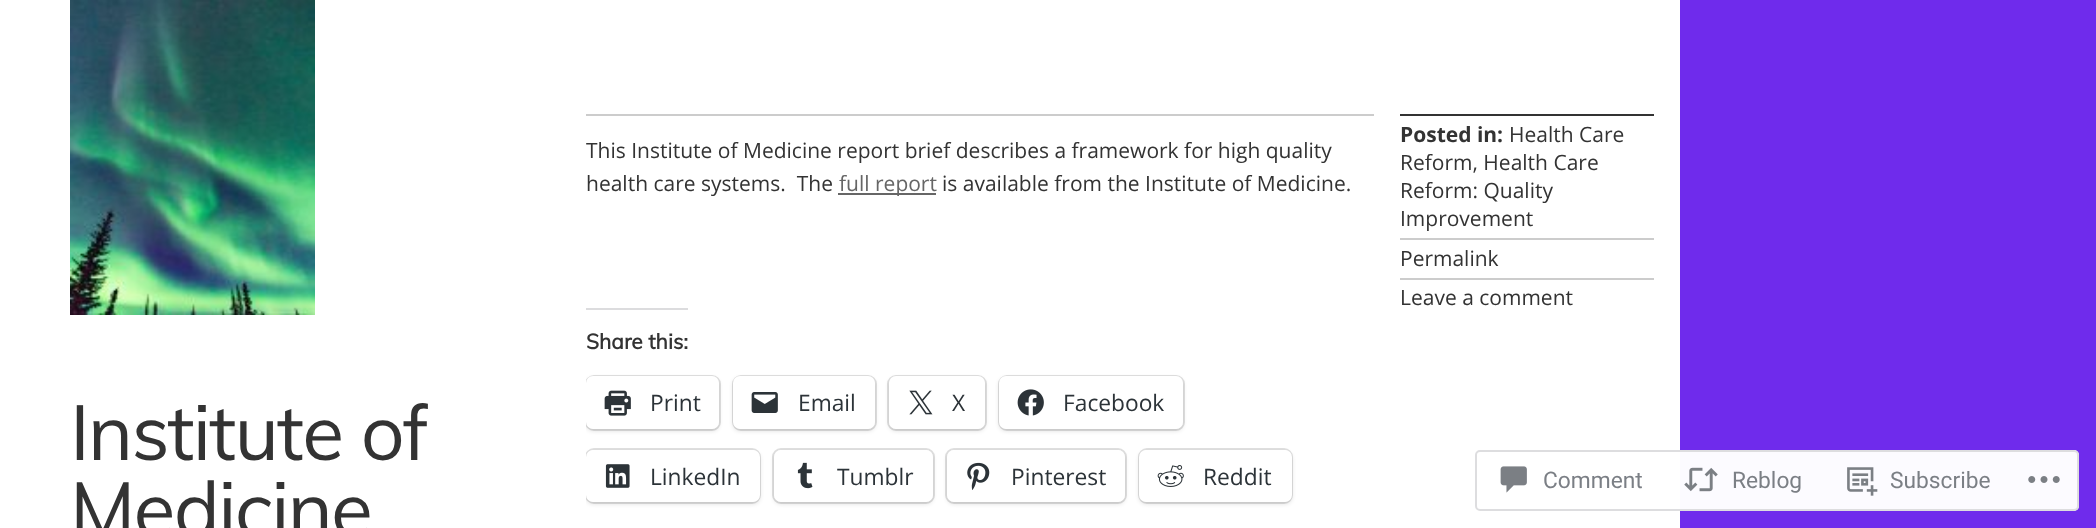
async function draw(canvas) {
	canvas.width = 2096;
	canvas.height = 528;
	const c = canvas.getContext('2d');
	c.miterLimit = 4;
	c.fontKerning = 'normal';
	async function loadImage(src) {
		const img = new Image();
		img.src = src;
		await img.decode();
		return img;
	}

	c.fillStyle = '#6f2bec';
	c.fillRect(0, 0, 2096, 528);
	c.fillStyle = '#fff';
	c.fillRect(0, 0, 1680, 528);
	c.drawImage(await loadImage('img1.png'), 70, 0, 245, 315);
	c.letterSpacing = '-1.75px';
	c.font = '77px Muli';
	c.fillStyle = '#333';
	c.fillText('Institute of', 70, 460);
	c.fillText('Medicine', 70, 537);
	c.fillStyle = '#ccc';
	c.fillRect(586, 114, 788, 2);
	c.letterSpacing = '0px';
	c.font = '21px Open Sans';
	c.fillStyle = '#333';
	c.fillText('This Institute of Medicine report brief describes a framework for high quality', 586, 158);
	c.fillText('health care systems.  The', 586, 191);
	c.fillStyle = '#666';
	c.fillRect(838, 193, 98, 2);
	c.fillText('full report', 839, 191);
	c.fillStyle = '#333';
	c.fillText('is available from the Institute of Medicine.', 942, 191);
	c.fillStyle = '#dcdcde';
	c.fillRect(586, 308, 102, 2);
	c.font = 'bold 21px Muli';
	c.fillStyle = '#333';
	c.fillText('Share this:', 586, 349);
	c.save();
	c.beginPath();
	c.rect(586, 0, 1094, 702);
	c.clip();
	c.beginPath();
	c.roundRect(586, 376, 134, 54, 8);
	c.strokeStyle = '#e0e0e0';
	c.lineWidth = 2;
	c.stroke();
	c.restore();
	c.save();
	c.beginPath();
	c.rect(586, 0, 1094, 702);
	c.clip();
	c.fillStyle = '#0000001f';
	c.filter = 'blur(2px)';
	c.beginPath();
	c.roundRect(586, 378, 133, 53, 7);
	c.fill();
	c.filter = 'none';
	c.restore();
	c.fillStyle = '#fff';
	c.beginPath();
	c.roundRect(586, 376, 133, 53, 7);
	c.fill();
	c.drawImage(await loadImage('img2.png'), 604, 390, 27, 26);
	c.font = '22.75px Open Sans';
	c.fillStyle = '#2c3338';
	c.fillText('Print', 650, 411);
	c.beginPath();
	c.roundRect(733, 376, 143, 54, 8);
	c.strokeStyle = '#e0e0e0';
	c.lineWidth = 2;
	c.stroke();
	c.fillStyle = '#0000001f';
	c.filter = 'blur(2px)';
	c.beginPath();
	c.roundRect(733, 378, 142, 53, 7);
	c.fill();
	c.filter = 'none';
	c.fillStyle = '#fff';
	c.beginPath();
	c.roundRect(733, 376, 142, 53, 7);
	c.fill();
	c.drawImage(await loadImage('img3.png'), 751, 392, 27, 21);
	c.fillStyle = '#2c3338';
	c.fillText('Email', 798, 411);
	c.beginPath();
	c.roundRect(888, 376, 98, 54, 8);
	c.stroke();
	c.fillStyle = '#0000001f';
	c.filter = 'blur(2px)';
	c.beginPath();
	c.roundRect(889, 378, 96, 53, 7);
	c.fill();
	c.filter = 'none';
	c.fillStyle = '#fff';
	c.beginPath();
	c.roundRect(889, 376, 96, 53, 7);
	c.fill();
	c.drawImage(await loadImage('img4.png'), 909, 390, 24, 25);
	c.fillStyle = '#2c3338';
	c.fillText('X', 952, 411);
	c.beginPath();
	c.roundRect(999, 376, 185, 54, 8);
	c.stroke();
	c.fillStyle = '#0000001f';
	c.filter = 'blur(2px)';
	c.beginPath();
	c.roundRect(999, 378, 184, 53, 7);
	c.fill();
	c.filter = 'none';
	c.fillStyle = '#fff';
	c.beginPath();
	c.roundRect(999, 376, 184, 53, 7);
	c.fill();
	c.drawImage(await loadImage('img5.png'), 1017, 389, 27, 27);
	c.fillStyle = '#2c3338';
	c.fillText('Facebook', 1063, 411);
	c.save();
	c.beginPath();
	c.rect(586, 0, 1094, 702);
	c.clip();
	c.beginPath();
	c.roundRect(586, 449, 174, 54, 8);
	c.stroke();
	c.restore();
	c.save();
	c.beginPath();
	c.rect(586, 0, 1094, 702);
	c.clip();
	c.fillStyle = '#0000001f';
	c.filter = 'blur(2px)';
	c.beginPath();
	c.roundRect(586, 452, 174, 52, 7);
	c.fill();
	c.filter = 'none';
	c.restore();
	c.fillStyle = '#fff';
	c.beginPath();
	c.roundRect(586, 450, 174, 52, 7);
	c.fill();
	c.drawImage(await loadImage('img6.png'), 605, 464, 25, 24);
	c.fillStyle = '#2c3338';
	c.fillText('LinkedIn', 650, 485);
	c.beginPath();
	c.roundRect(773, 449, 161, 54, 8);
	c.stroke();
	c.fillStyle = '#0000001f';
	c.filter = 'blur(2px)';
	c.beginPath();
	c.roundRect(774, 452, 159, 52, 7);
	c.fill();
	c.filter = 'none';
	c.fillStyle = '#fff';
	c.beginPath();
	c.roundRect(774, 450, 159, 52, 7);
	c.fill();
	c.drawImage(await loadImage('img7.png'), 797, 462, 16, 27);
	c.fillStyle = '#2c3338';
	c.fillText('Tumblr', 837, 485);
	c.beginPath();
	c.roundRect(946, 449, 180, 54, 8);
	c.stroke();
	c.fillStyle = '#0000001f';
	c.filter = 'blur(2px)';
	c.beginPath();
	c.roundRect(947, 452, 178, 52, 7);
	c.fill();
	c.filter = 'none';
	c.fillStyle = '#fff';
	c.beginPath();
	c.roundRect(947, 450, 178, 52, 7);
	c.fill();
	c.drawImage(await loadImage('img8.png'), 967, 462, 23, 28);
	c.fillStyle = '#2c3338';
	c.fillText('Pinterest', 1011, 485);
	c.beginPath();
	c.roundRect(1139, 449, 153, 54, 8);
	c.stroke();
	c.fillStyle = '#0000001f';
	c.filter = 'blur(2px)';
	c.beginPath();
	c.roundRect(1139, 452, 153, 52, 7);
	c.fill();
	c.filter = 'none';
	c.fillStyle = '#fff';
	c.beginPath();
	c.roundRect(1139, 450, 153, 52, 7);
	c.fill();
	c.drawImage(await loadImage('img9.png'), 1157, 465, 27, 22);
	c.fillStyle = '#2c3338';
	c.fillText('Reddit', 1203, 485);
	c.fillStyle = '#333';
	c.fillRect(1400, 114, 254, 2);
	c.fillStyle = '#ccc';
	c.fillRect(1400, 238, 254, 2);
	c.font = 'bold 21px Open Sans';
	c.fillStyle = '#333';
	c.fillText('Posted in:', 1400, 142);
	c.font = '21px Open Sans';
	for (const [text, x, y] of [
		['Health Care', 1509, 142],
		['Reform, Health Care', 1400, 170],
		['Reform: Quality', 1400, 198],
		['Improvement', 1400, 226],
	]) {
		c.fillText(text, x, y);
	}
	c.fillStyle = '#ccc';
	c.fillRect(1400, 278, 254, 2);
	c.fillStyle = '#333';
	c.fillText('Permalink', 1400, 266);
	c.fillText('Leave a comment', 1400, 305);
	c.fillStyle = '#fffffffa';
	c.beginPath();
	c.roundRect(1475, 450, 604, 61, 5);
	c.fill();
	c.beginPath();
	c.roundRect(1476, 451, 602, 59, 4);
	c.strokeStyle = '#dcdcdefa';
	c.stroke();
	c.drawImage(await loadImage('img10.png'), 1500, 466, 27, 27);
	c.font = '22.75px Roboto';
	c.fillStyle = '#7b7f85';
	c.fillText('Comment', 1543, 488);
	c.drawImage(await loadImage('img11.png'), 1684, 467, 34, 25);
	c.fillText('Reblog', 1732, 488);
	c.drawImage(await loadImage('img12.png'), 1847, 467, 31, 29);
	c.fillText('Subscribe', 1890, 488);
	c.drawImage(await loadImage('img13.png'), 2028, 476, 32, 7);
}

draw(document.querySelector('canvas'));
